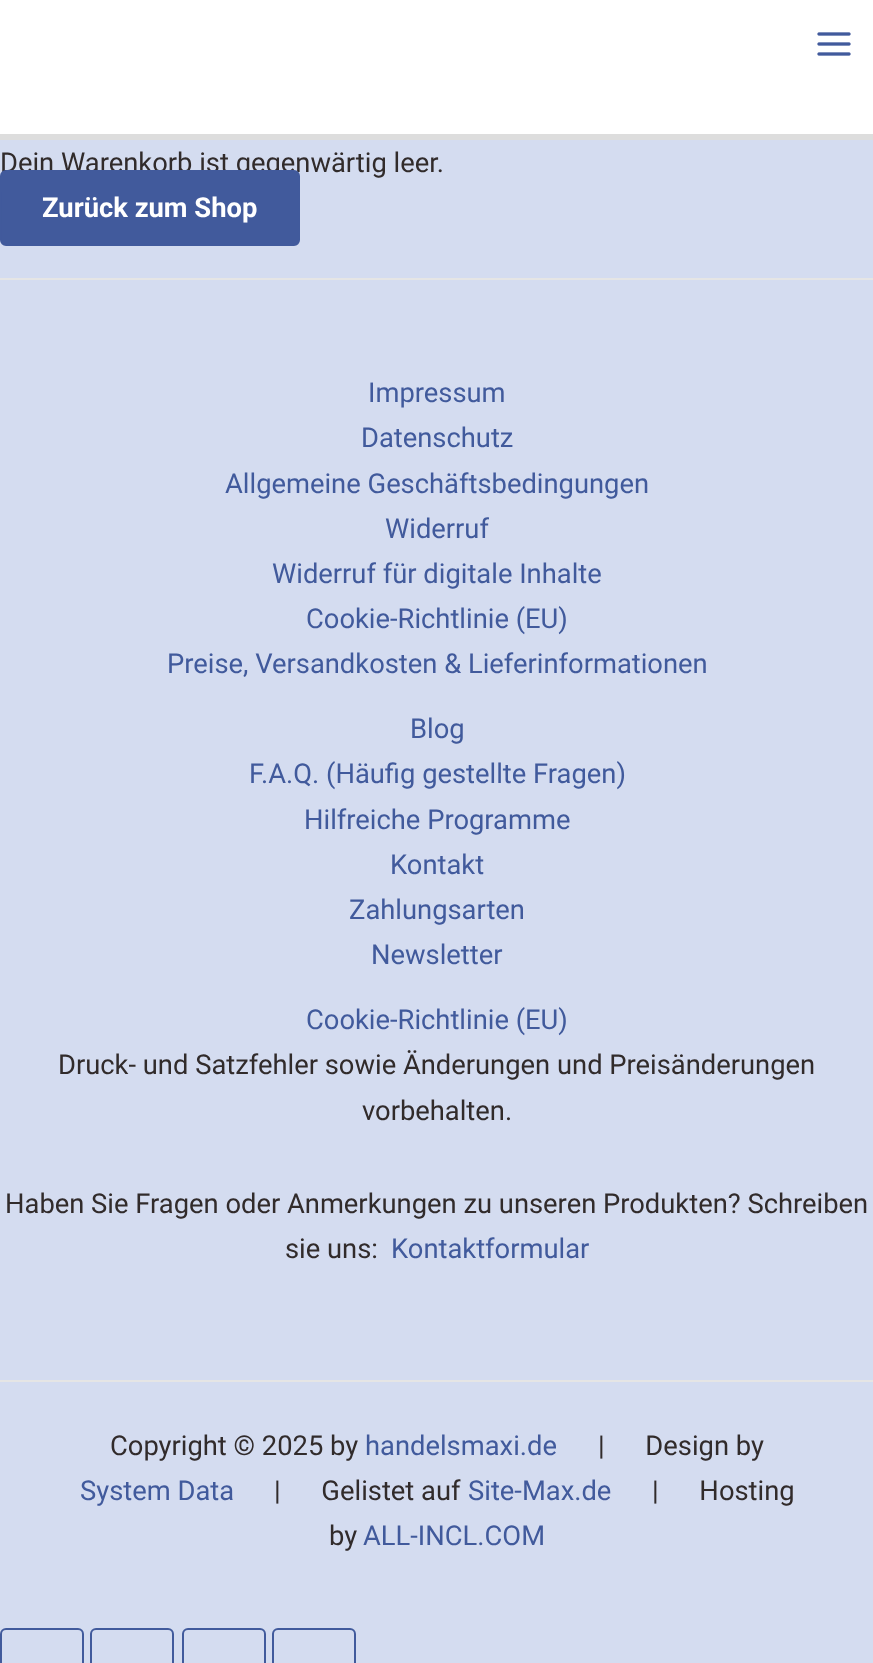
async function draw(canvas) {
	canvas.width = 873;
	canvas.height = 1663;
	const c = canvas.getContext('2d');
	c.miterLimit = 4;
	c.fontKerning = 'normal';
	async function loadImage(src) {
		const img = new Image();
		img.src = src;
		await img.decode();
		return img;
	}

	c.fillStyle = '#d4dcf0';
	c.fillRect(0, 0, 873, 1663);
	c.fillStyle = '#fff';
	c.fillRect(0, 0, 873, 134);
	c.fillStyle = '#ddd';
	c.fillRect(0, 134, 873, 6);
	c.drawImage(await loadImage('img1.png'), 817, 32, 34, 24);
	c.font = '27.35px Roboto';
	c.fillStyle = '#312b2b';
	c.fillText('Dein Warenkorb ist gegenwärtig leer.', 0, 172);
	c.fillStyle = '#415a9c';
	c.beginPath();
	c.roundRect(1, 171, 298, 74, 5);
	c.fill();
	c.strokeStyle = '#415a9c';
	c.lineWidth = 2;
	c.stroke();
	c.font = 'bold 27.35px Roboto';
	c.fillStyle = '#fff';
	c.fillText('Zurück zum Shop', 42, 217);
	c.fillStyle = '#e5e5e5';
	c.fillRect(0, 278, 873, 2);
	c.font = '27.35px Roboto';
	c.fillStyle = '#415a9c';
	for (const [text, x, y] of [
		['Impressum', 368, 402],
		['Datenschutz', 361, 447],
		['Allgemeine Geschäftsbedingungen', 225, 493],
		['Widerruf', 385, 538],
		['Widerruf für digitale Inhalte', 272, 583],
		['Cookie-Richtlinie (EU)', 306, 628],
		['Preise, Versandkosten & Lieferinformationen', 167, 673],
		['Blog', 410, 738],
		['F.A.Q. (Häufig gestellte Fragen)', 249, 783],
		['Hilfreiche Programme', 304, 829],
		['Kontakt', 390, 874],
		['Zahlungsarten', 349, 919],
		['Newsletter', 371, 964],
		['Cookie-Richtlinie (EU)', 306, 1029],
	]) {
		c.fillText(text, x, y);
	}
	c.fillStyle = '#312b2b';
	for (const [text, x, y] of [
		['Druck- und Satzfehler sowie Änderungen und Preisänderungen', 58, 1074],
		['vorbehalten.', 362, 1120],
		['Haben Sie Fragen oder Anmerkungen zu unseren Produkten? Schreiben', 5, 1213],
		['sie uns:', 285, 1258],
	]) {
		c.fillText(text, x, y);
	}
	c.fillStyle = '#415a9c';
	c.fillText('Kontaktformular', 391, 1258);
	c.fillStyle = '#e5e5e5';
	c.fillRect(0, 1380, 873, 2);
	c.fillStyle = '#312b2b';
	c.fillText('Copyright © 2025 by', 110, 1455);
	c.fillStyle = '#415a9c';
	c.fillText('handelsmaxi.de', 365, 1455);
	c.fillStyle = '#312b2b';
	c.fillText('|      Design by', 598, 1455);
	c.fillStyle = '#415a9c';
	c.fillText('System Data', 80, 1500);
	c.fillStyle = '#312b2b';
	c.fillText('|      Gelistet auf', 274, 1500);
	c.fillStyle = '#415a9c';
	c.fillText('Site-Max.de', 468, 1500);
	c.fillStyle = '#312b2b';
	c.fillText('|      Hosting', 652, 1500);
	c.fillText('by', 329, 1545);
	c.fillStyle = '#415a9c';
	c.fillText('ALL-INCL.COM', 363, 1545);
	c.beginPath();
	c.roundRect(1, 1629, 82, 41, 5);
	c.stroke();
	c.beginPath();
	c.roundRect(91, 1629, 82, 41, 5);
	c.stroke();
	c.beginPath();
	c.roundRect(183, 1629, 82, 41, 5);
	c.stroke();
	c.beginPath();
	c.roundRect(273, 1629, 82, 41, 5);
	c.stroke();
}

draw(document.querySelector('canvas'));
